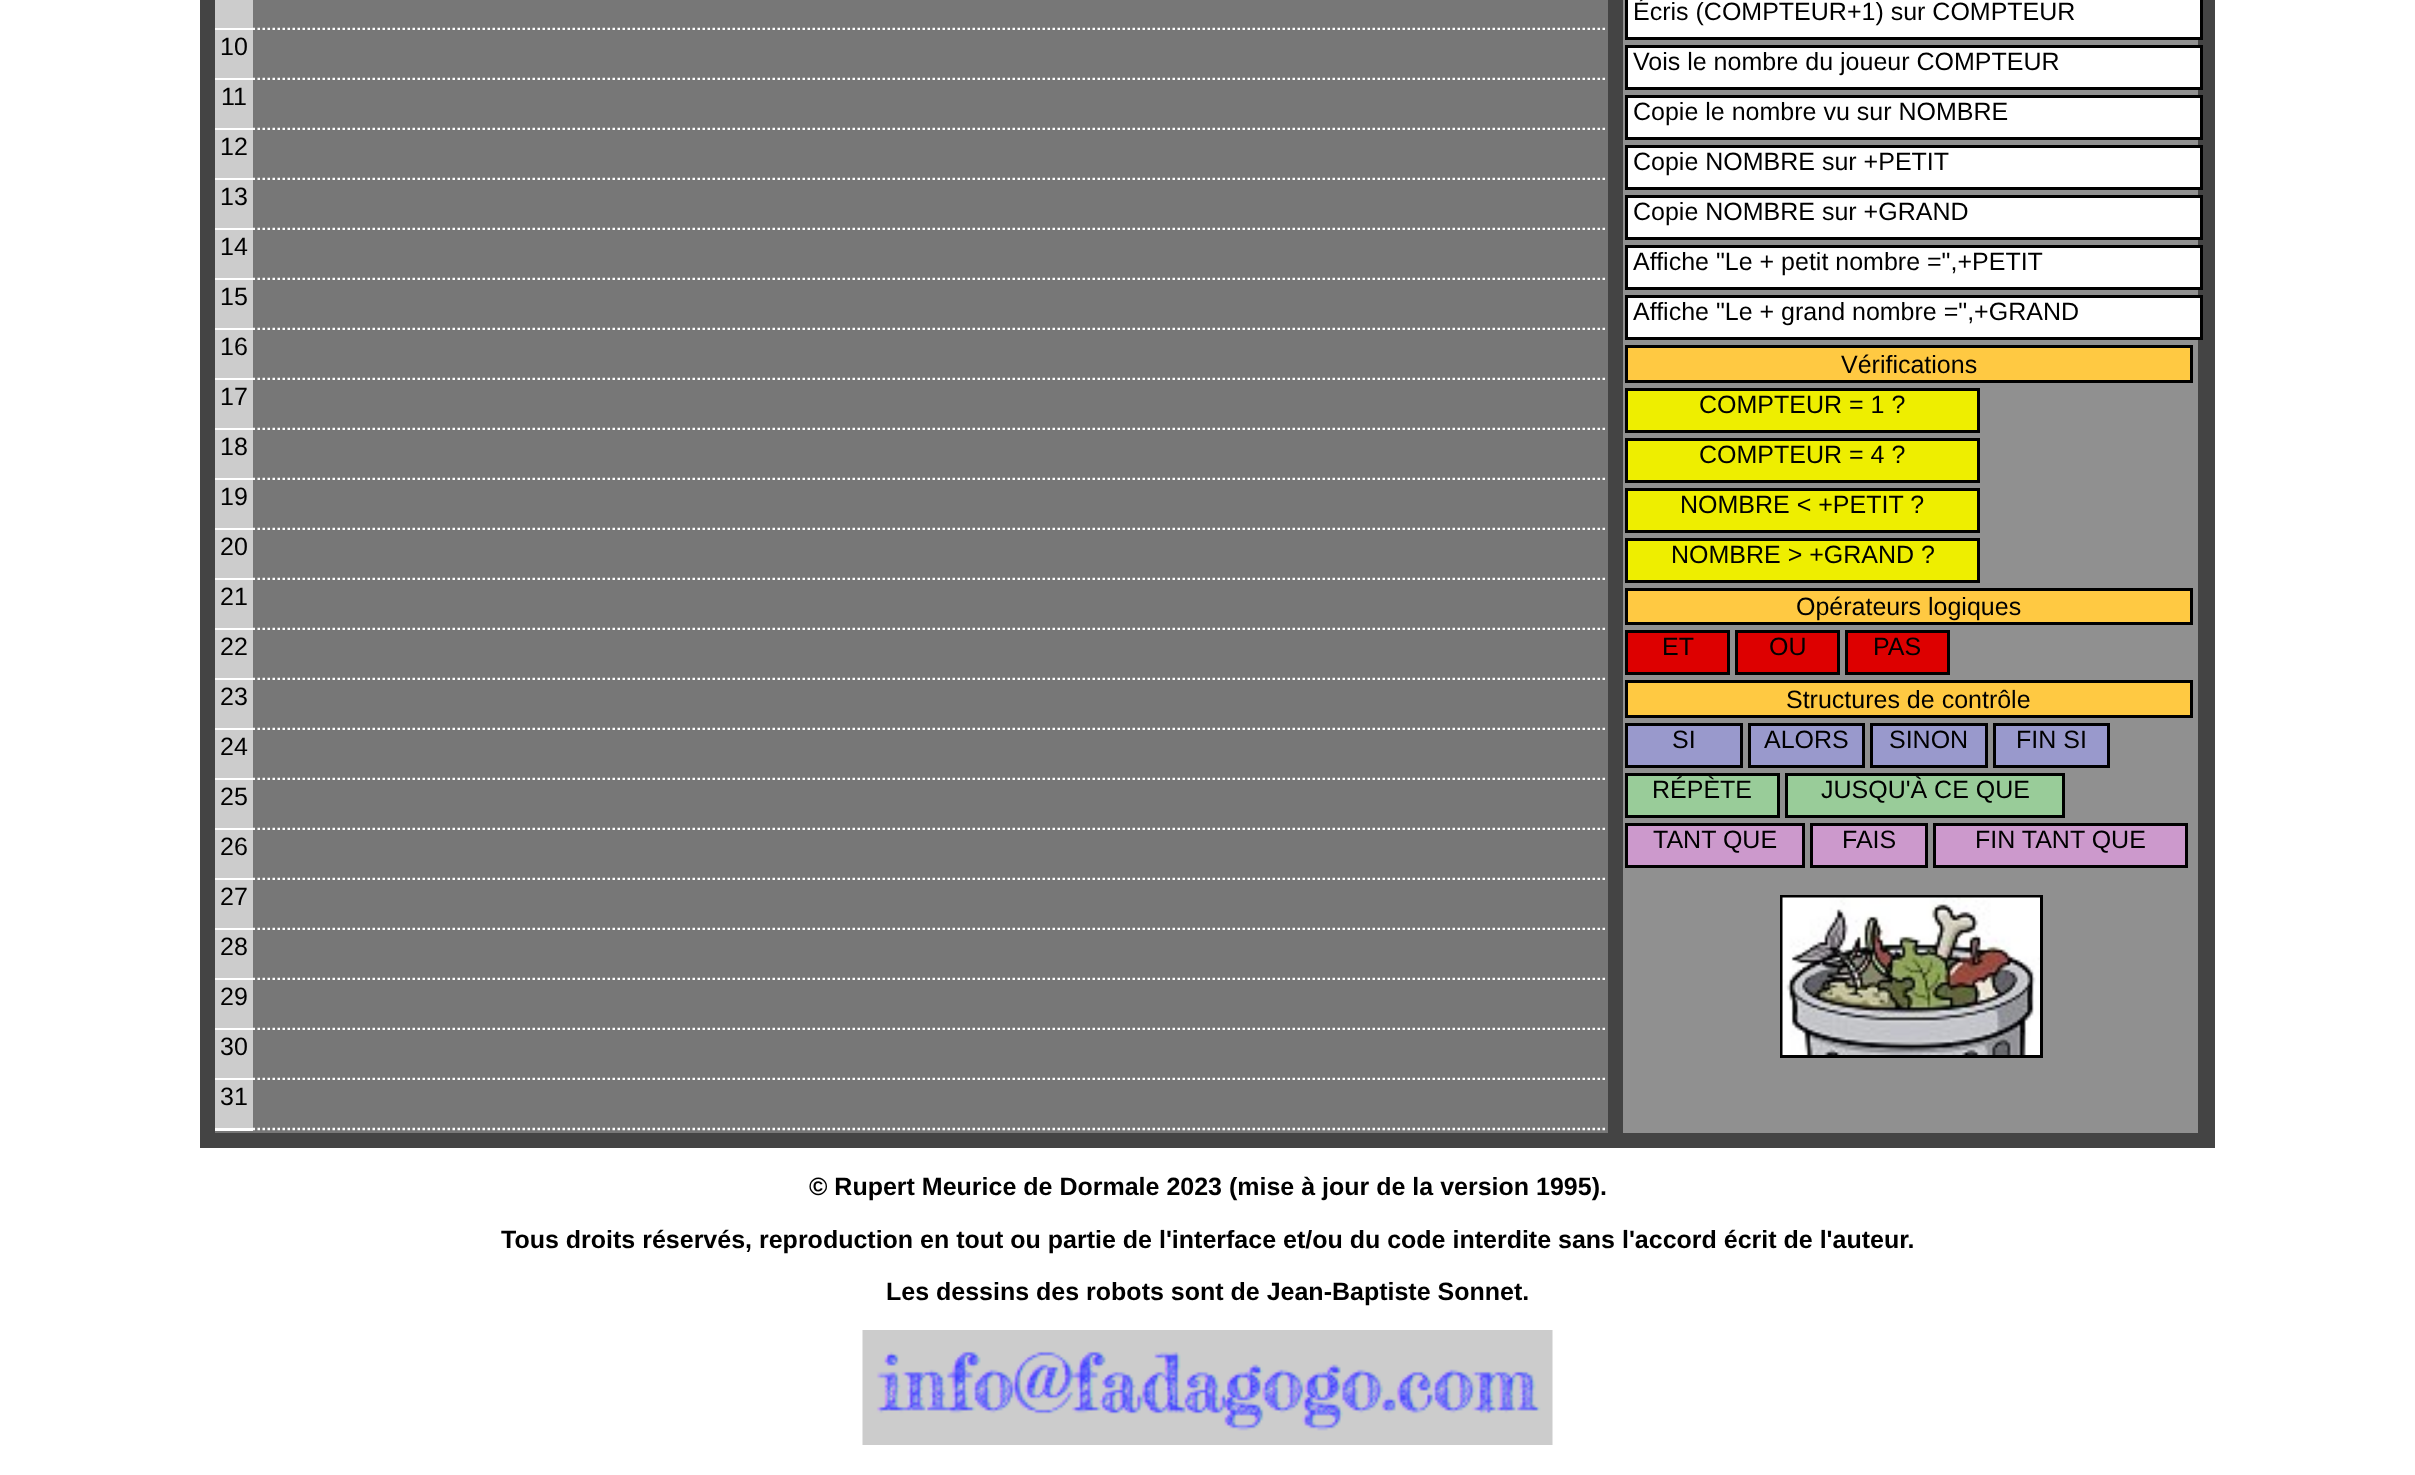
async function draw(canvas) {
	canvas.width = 2415;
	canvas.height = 1475;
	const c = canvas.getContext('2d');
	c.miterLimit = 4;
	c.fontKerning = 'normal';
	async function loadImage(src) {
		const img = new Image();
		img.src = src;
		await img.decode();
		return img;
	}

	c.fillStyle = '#fff';
	c.fillRect(0, 0, 2415, 1475);
	for (const [x, y, w, h, color] of [
		[200, 0, 2015, 1148, '#444'],
		[215, 0, 1393, 1133, '#777'],
		[215, 0, 38, 28, '#ccc'],
		[215, 28, 38, 2, '#fff'],
	]) {
		c.fillStyle = color;
		c.fillRect(x, y, w, h);
	}
	c.beginPath();
	c.moveTo(252.5, 29);
	c.lineTo(1607.5, 29);
	c.strokeStyle = '#fff';
	c.lineWidth = 2.5;
	c.setLineDash([2.5, 2.5]);
	c.stroke();
	c.fillStyle = '#ccc';
	c.fillRect(215, 30, 38, 48);
	c.fillStyle = '#fff';
	c.fillRect(215, 78, 38, 2);
	c.font = '25px Liberation Sans';
	c.fillStyle = '#000';
	c.fillText('10', 220, 55);
	c.fillStyle = '#777';
	c.fillRect(253, 30, 1352, 1);
	c.beginPath();
	c.moveTo(252.5, 79);
	c.lineTo(1607.5, 79);
	c.stroke();
	c.fillStyle = '#ccc';
	c.fillRect(215, 80, 38, 48);
	c.fillStyle = '#fff';
	c.fillRect(215, 128, 38, 2);
	c.fillStyle = '#000';
	c.fillText('11', 221, 105);
	c.fillStyle = '#777';
	c.fillRect(253, 80, 1352, 1);
	c.beginPath();
	c.moveTo(252.5, 129);
	c.lineTo(1607.5, 129);
	c.stroke();
	c.fillStyle = '#ccc';
	c.fillRect(215, 130, 38, 48);
	c.fillStyle = '#fff';
	c.fillRect(215, 178, 38, 2);
	c.fillStyle = '#000';
	c.fillText('12', 220, 155);
	c.fillStyle = '#777';
	c.fillRect(253, 130, 1352, 1);
	c.beginPath();
	c.moveTo(252.5, 179);
	c.lineTo(1607.5, 179);
	c.stroke();
	c.fillStyle = '#ccc';
	c.fillRect(215, 180, 38, 48);
	c.fillStyle = '#fff';
	c.fillRect(215, 228, 38, 2);
	c.fillStyle = '#000';
	c.fillText('13', 220, 205);
	c.fillStyle = '#777';
	c.fillRect(253, 180, 1352, 1);
	c.beginPath();
	c.moveTo(252.5, 229);
	c.lineTo(1607.5, 229);
	c.stroke();
	c.fillStyle = '#ccc';
	c.fillRect(215, 230, 38, 48);
	c.fillStyle = '#fff';
	c.fillRect(215, 278, 38, 2);
	c.fillStyle = '#000';
	c.fillText('14', 220, 255);
	c.fillStyle = '#777';
	c.fillRect(253, 230, 1352, 1);
	c.beginPath();
	c.moveTo(252.5, 279);
	c.lineTo(1607.5, 279);
	c.stroke();
	c.fillStyle = '#ccc';
	c.fillRect(215, 280, 38, 48);
	c.fillStyle = '#fff';
	c.fillRect(215, 328, 38, 2);
	c.fillStyle = '#000';
	c.fillText('15', 220, 305);
	c.fillStyle = '#777';
	c.fillRect(253, 280, 1352, 1);
	c.beginPath();
	c.moveTo(252.5, 329);
	c.lineTo(1607.5, 329);
	c.stroke();
	c.fillStyle = '#ccc';
	c.fillRect(215, 330, 38, 48);
	c.fillStyle = '#fff';
	c.fillRect(215, 378, 38, 2);
	c.fillStyle = '#000';
	c.fillText('16', 220, 355);
	c.fillStyle = '#777';
	c.fillRect(253, 330, 1352, 1);
	c.beginPath();
	c.moveTo(252.5, 379);
	c.lineTo(1607.5, 379);
	c.stroke();
	c.fillStyle = '#ccc';
	c.fillRect(215, 380, 38, 48);
	c.fillStyle = '#fff';
	c.fillRect(215, 428, 38, 2);
	c.fillStyle = '#000';
	c.fillText('17', 220, 405);
	c.fillStyle = '#777';
	c.fillRect(253, 380, 1352, 1);
	c.beginPath();
	c.moveTo(252.5, 429);
	c.lineTo(1607.5, 429);
	c.stroke();
	c.fillStyle = '#ccc';
	c.fillRect(215, 430, 38, 48);
	c.fillStyle = '#fff';
	c.fillRect(215, 478, 38, 2);
	c.fillStyle = '#000';
	c.fillText('18', 220, 455);
	c.fillStyle = '#777';
	c.fillRect(253, 430, 1352, 1);
	c.beginPath();
	c.moveTo(252.5, 479);
	c.lineTo(1607.5, 479);
	c.stroke();
	c.fillStyle = '#ccc';
	c.fillRect(215, 480, 38, 48);
	c.fillStyle = '#fff';
	c.fillRect(215, 528, 38, 2);
	c.fillStyle = '#000';
	c.fillText('19', 220, 505);
	c.fillStyle = '#777';
	c.fillRect(253, 480, 1352, 1);
	c.beginPath();
	c.moveTo(252.5, 529);
	c.lineTo(1607.5, 529);
	c.stroke();
	c.fillStyle = '#ccc';
	c.fillRect(215, 530, 38, 48);
	c.fillStyle = '#fff';
	c.fillRect(215, 578, 38, 2);
	c.fillStyle = '#000';
	c.fillText('20', 220, 555);
	c.fillStyle = '#777';
	c.fillRect(253, 530, 1352, 1);
	c.beginPath();
	c.moveTo(252.5, 579);
	c.lineTo(1607.5, 579);
	c.stroke();
	c.fillStyle = '#ccc';
	c.fillRect(215, 580, 38, 48);
	c.fillStyle = '#fff';
	c.fillRect(215, 628, 38, 2);
	c.fillStyle = '#000';
	c.fillText('21', 220, 605);
	c.fillStyle = '#777';
	c.fillRect(253, 580, 1352, 1);
	c.beginPath();
	c.moveTo(252.5, 629);
	c.lineTo(1607.5, 629);
	c.stroke();
	c.fillStyle = '#ccc';
	c.fillRect(215, 630, 38, 48);
	c.fillStyle = '#fff';
	c.fillRect(215, 678, 38, 2);
	c.fillStyle = '#000';
	c.fillText('22', 220, 655);
	c.fillStyle = '#777';
	c.fillRect(253, 630, 1352, 1);
	c.beginPath();
	c.moveTo(252.5, 679);
	c.lineTo(1607.5, 679);
	c.stroke();
	c.fillStyle = '#ccc';
	c.fillRect(215, 680, 38, 48);
	c.fillStyle = '#fff';
	c.fillRect(215, 728, 38, 2);
	c.fillStyle = '#000';
	c.fillText('23', 220, 705);
	c.fillStyle = '#777';
	c.fillRect(253, 680, 1352, 1);
	c.beginPath();
	c.moveTo(252.5, 729);
	c.lineTo(1607.5, 729);
	c.stroke();
	c.fillStyle = '#ccc';
	c.fillRect(215, 730, 38, 48);
	c.fillStyle = '#fff';
	c.fillRect(215, 778, 38, 2);
	c.fillStyle = '#000';
	c.fillText('24', 220, 755);
	c.fillStyle = '#777';
	c.fillRect(253, 730, 1352, 1);
	c.beginPath();
	c.moveTo(252.5, 779);
	c.lineTo(1607.5, 779);
	c.stroke();
	c.fillStyle = '#ccc';
	c.fillRect(215, 780, 38, 48);
	c.fillStyle = '#fff';
	c.fillRect(215, 828, 38, 2);
	c.fillStyle = '#000';
	c.fillText('25', 220, 805);
	c.fillStyle = '#777';
	c.fillRect(253, 780, 1352, 1);
	c.beginPath();
	c.moveTo(252.5, 829);
	c.lineTo(1607.5, 829);
	c.stroke();
	c.fillStyle = '#ccc';
	c.fillRect(215, 830, 38, 48);
	c.fillStyle = '#fff';
	c.fillRect(215, 878, 38, 2);
	c.fillStyle = '#000';
	c.fillText('26', 220, 855);
	c.fillStyle = '#777';
	c.fillRect(253, 830, 1352, 1);
	c.beginPath();
	c.moveTo(252.5, 879);
	c.lineTo(1607.5, 879);
	c.stroke();
	c.fillStyle = '#ccc';
	c.fillRect(215, 880, 38, 48);
	c.fillStyle = '#fff';
	c.fillRect(215, 928, 38, 2);
	c.fillStyle = '#000';
	c.fillText('27', 220, 905);
	c.fillStyle = '#777';
	c.fillRect(253, 880, 1352, 1);
	c.beginPath();
	c.moveTo(252.5, 929);
	c.lineTo(1607.5, 929);
	c.stroke();
	c.fillStyle = '#ccc';
	c.fillRect(215, 930, 38, 48);
	c.fillStyle = '#fff';
	c.fillRect(215, 978, 38, 2);
	c.fillStyle = '#000';
	c.fillText('28', 220, 955);
	c.fillStyle = '#777';
	c.fillRect(253, 930, 1352, 1);
	c.beginPath();
	c.moveTo(252.5, 979);
	c.lineTo(1607.5, 979);
	c.stroke();
	c.fillStyle = '#ccc';
	c.fillRect(215, 980, 38, 48);
	c.fillStyle = '#fff';
	c.fillRect(215, 1028, 38, 2);
	c.fillStyle = '#000';
	c.fillText('29', 220, 1005);
	c.fillStyle = '#777';
	c.fillRect(253, 980, 1352, 1);
	c.beginPath();
	c.moveTo(252.5, 1029);
	c.lineTo(1607.5, 1029);
	c.stroke();
	c.fillStyle = '#ccc';
	c.fillRect(215, 1030, 38, 48);
	c.fillStyle = '#fff';
	c.fillRect(215, 1078, 38, 2);
	c.fillStyle = '#000';
	c.fillText('30', 220, 1055);
	c.fillStyle = '#777';
	c.fillRect(253, 1030, 1352, 1);
	c.beginPath();
	c.moveTo(252.5, 1079);
	c.lineTo(1607.5, 1079);
	c.stroke();
	c.fillStyle = '#ccc';
	c.fillRect(215, 1080, 38, 48);
	c.fillStyle = '#fff';
	c.fillRect(215, 1128, 38, 3);
	c.fillStyle = '#000';
	c.fillText('31', 220, 1105);
	c.fillStyle = '#777';
	c.fillRect(253, 1080, 1352, 1);
	c.beginPath();
	c.moveTo(252.5, 1129);
	c.lineTo(1607.5, 1129);
	c.stroke();
	c.fillStyle = '#909090';
	c.fillRect(1623, 0, 575, 1133);
	c.fillStyle = '#fff';
	c.beginPath();
	c.rect(1626.5, -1.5, 575, 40);
	c.fill();
	c.strokeStyle = '#000';
	c.lineWidth = 3;
	c.setLineDash([]);
	c.stroke();
	c.fillStyle = '#000';
	c.fillText('Écris (COMPTEUR+1) sur COMPTEUR', 1633, 20);
	c.fillStyle = '#fff';
	c.beginPath();
	c.rect(1626.5, 46.5, 575, 42);
	c.fill();
	c.stroke();
	c.fillStyle = '#000';
	c.fillText('Vois le nombre du joueur COMPTEUR', 1633, 70);
	c.fillStyle = '#fff';
	c.beginPath();
	c.rect(1626.5, 96.5, 575, 42);
	c.fill();
	c.stroke();
	c.fillStyle = '#000';
	c.fillText('Copie le nombre vu sur NOMBRE', 1633, 120);
	c.fillStyle = '#fff';
	c.beginPath();
	c.rect(1626.5, 146.5, 575, 42);
	c.fill();
	c.stroke();
	c.fillStyle = '#000';
	c.fillText('Copie NOMBRE sur +PETIT', 1633, 170);
	c.fillStyle = '#fff';
	c.beginPath();
	c.rect(1626.5, 196.5, 575, 42);
	c.fill();
	c.stroke();
	c.fillStyle = '#000';
	c.fillText('Copie NOMBRE sur +GRAND', 1633, 220);
	c.fillStyle = '#fff';
	c.beginPath();
	c.rect(1626.5, 246.5, 575, 42);
	c.fill();
	c.stroke();
	c.fillStyle = '#000';
	c.fillText('Affiche "Le + petit nombre =",+PETIT', 1633, 270);
	c.fillStyle = '#fff';
	c.beginPath();
	c.rect(1626.5, 296.5, 575, 42);
	c.fill();
	c.stroke();
	c.fillStyle = '#000';
	c.fillText('Affiche "Le + grand nombre =",+GRAND', 1633, 320);
	c.fillStyle = '#ffc942';
	c.beginPath();
	c.rect(1626.5, 346.5, 565, 35);
	c.fill();
	c.stroke();
	c.fillStyle = '#000';
	c.fillText('Vérifications', 1841, 373);
	c.fillStyle = '#ee0';
	c.beginPath();
	c.rect(1626.5, 389.5, 352, 42);
	c.fill();
	c.stroke();
	c.fillStyle = '#000';
	c.fillText('COMPTEUR = 1 ?', 1699, 413);
	c.fillStyle = '#ee0';
	c.beginPath();
	c.rect(1626.5, 439.5, 352, 42);
	c.fill();
	c.stroke();
	c.fillStyle = '#000';
	c.fillText('COMPTEUR = 4 ?', 1699, 463);
	c.fillStyle = '#ee0';
	c.beginPath();
	c.rect(1626.5, 489.5, 352, 42);
	c.fill();
	c.stroke();
	c.fillStyle = '#000';
	c.fillText('NOMBRE < +PETIT ?', 1680, 513);
	c.fillStyle = '#ee0';
	c.beginPath();
	c.rect(1626.5, 539.5, 352, 42);
	c.fill();
	c.stroke();
	c.fillStyle = '#000';
	c.fillText('NOMBRE > +GRAND ?', 1671, 563);
	c.fillStyle = '#ffc942';
	c.beginPath();
	c.rect(1626.5, 589.5, 565, 34);
	c.fill();
	c.stroke();
	c.fillStyle = '#000';
	c.fillText('Opérateurs logiques', 1796, 615);
	c.fillStyle = '#d00';
	c.beginPath();
	c.rect(1626.5, 631.5, 102, 42);
	c.fill();
	c.stroke();
	c.fillStyle = '#000';
	c.fillText('ET', 1662, 655);
	c.fillStyle = '#d00';
	c.beginPath();
	c.rect(1736.5, 631.5, 102, 42);
	c.fill();
	c.stroke();
	c.fillStyle = '#000';
	c.fillText('OU', 1769, 655);
	c.fillStyle = '#d00';
	c.beginPath();
	c.rect(1846.5, 631.5, 102, 42);
	c.fill();
	c.stroke();
	c.fillStyle = '#000';
	c.fillText('PAS', 1873, 655);
	c.fillStyle = '#ffc942';
	c.beginPath();
	c.rect(1626.5, 681.5, 565, 35);
	c.fill();
	c.stroke();
	c.fillStyle = '#000';
	c.fillText('Structures de contrôle', 1786, 708);
	c.fillStyle = '#99c';
	c.beginPath();
	c.rect(1626.5, 724.5, 115, 42);
	c.fill();
	c.stroke();
	c.fillStyle = '#000';
	c.fillText('SI', 1672, 748);
	c.fillStyle = '#99c';
	c.beginPath();
	c.rect(1749.5, 724.5, 114, 42);
	c.fill();
	c.stroke();
	c.fillStyle = '#000';
	c.fillText('ALORS', 1764, 748);
	c.fillStyle = '#99c';
	c.beginPath();
	c.rect(1871.5, 724.5, 115, 42);
	c.fill();
	c.stroke();
	c.fillStyle = '#000';
	c.fillText('SINON', 1889, 748);
	c.fillStyle = '#99c';
	c.beginPath();
	c.rect(1994.5, 724.5, 114, 42);
	c.fill();
	c.stroke();
	c.fillStyle = '#000';
	c.fillText('FIN SI', 2016, 748);
	c.fillStyle = '#9c9';
	c.beginPath();
	c.rect(1626.5, 774.5, 152, 42);
	c.fill();
	c.stroke();
	c.fillStyle = '#000';
	c.fillText('RÉPÈTE', 1652, 798);
	c.fillStyle = '#9c9';
	c.beginPath();
	c.rect(1786.5, 774.5, 277, 42);
	c.fill();
	c.stroke();
	c.fillStyle = '#000';
	c.fillText('JUSQU\'À CE QUE', 1821, 798);
	c.fillStyle = '#c9c';
	c.beginPath();
	c.rect(1626.5, 824.5, 177, 42);
	c.fill();
	c.stroke();
	c.fillStyle = '#000';
	c.fillText('TANT QUE', 1653, 848);
	c.fillStyle = '#c9c';
	c.beginPath();
	c.rect(1811.5, 824.5, 115, 42);
	c.fill();
	c.stroke();
	c.fillStyle = '#000';
	c.fillText('FAIS', 1842, 848);
	c.fillStyle = '#c9c';
	c.beginPath();
	c.rect(1934.5, 824.5, 252, 42);
	c.fill();
	c.stroke();
	c.fillStyle = '#000';
	c.fillText('FIN TANT QUE', 1975, 848);
	c.strokeRect(1781.5, 896.5, 260, 160);
	c.drawImage(await loadImage('img1.png'), 1782, 897, 258, 158);
	c.font = 'bold 25px Liberation Sans';
	for (const [text, x, y] of [
		['© Rupert Meurice de Dormale 2023 (mise à jour de la version 1995).', 809, 1195],
		['Tous droits réservés, reproduction en tout ou partie de l\'interface et/ou du code interdite sans l\'accord écrit de l\'auteur.', 501, 1248],
		['Les dessins des robots sont de Jean-Baptiste Sonnet.', 886, 1300],
	]) {
		c.fillText(text, x, y);
	}
	c.drawImage(await loadImage('img2.png'), 862, 1330, 691, 115);
}

draw(document.querySelector('canvas'));
